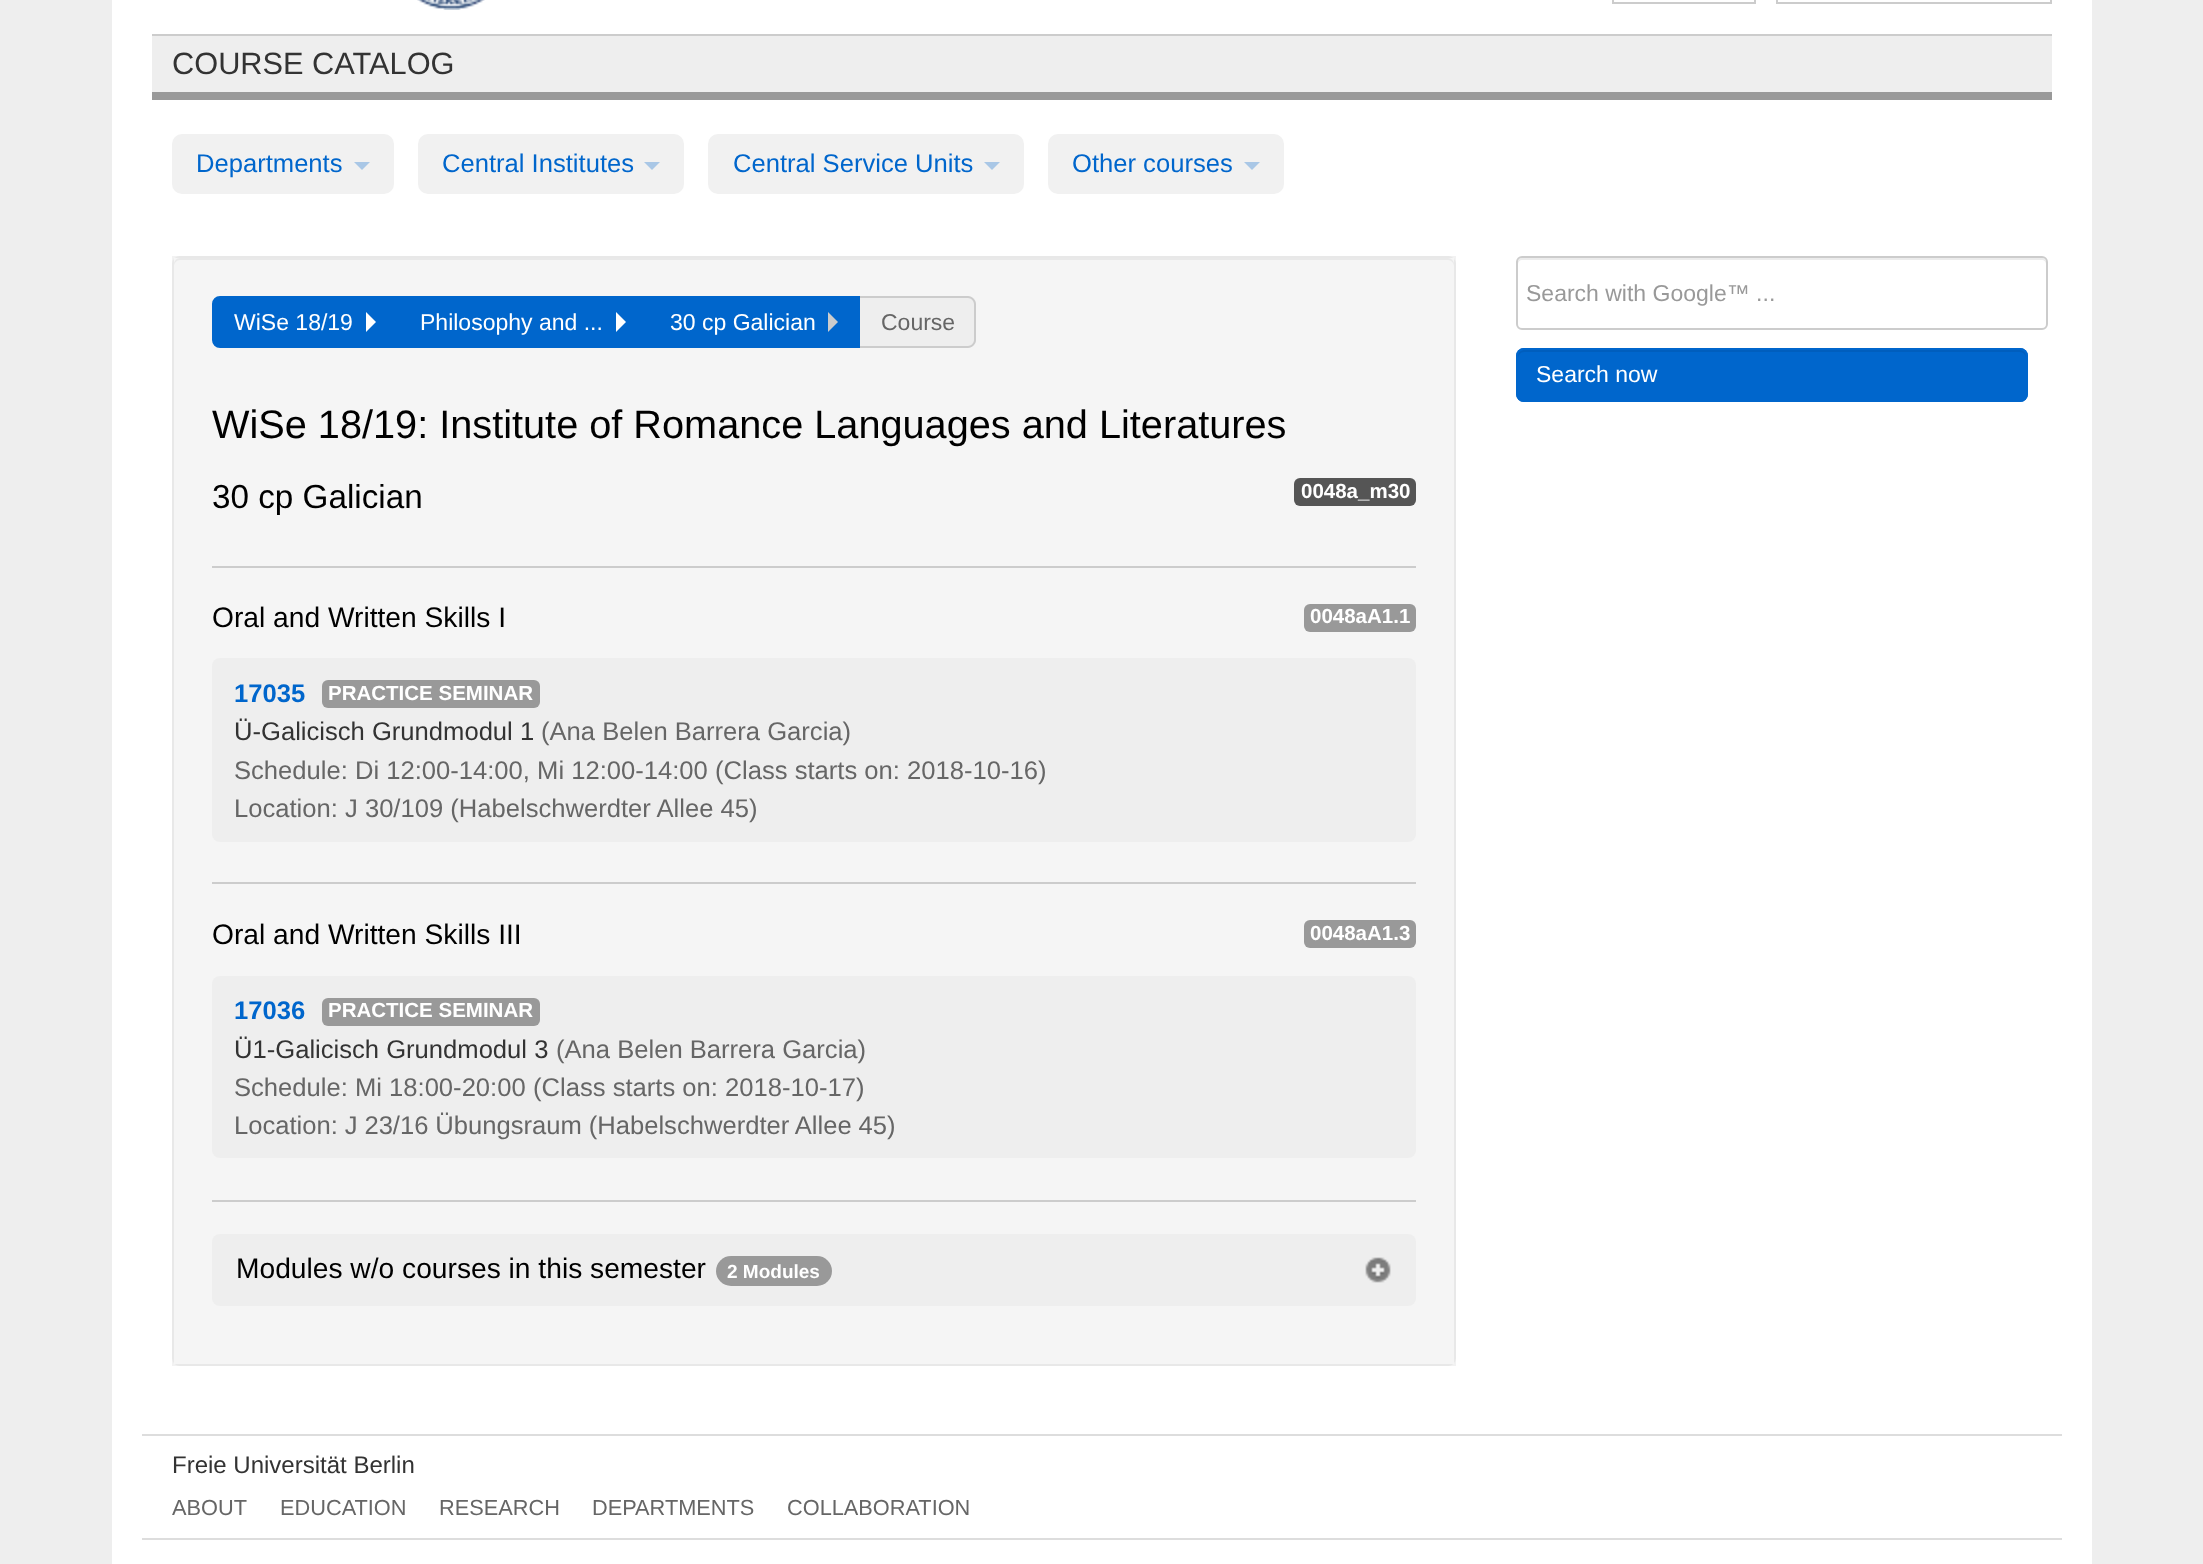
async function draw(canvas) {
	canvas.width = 2203;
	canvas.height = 1564;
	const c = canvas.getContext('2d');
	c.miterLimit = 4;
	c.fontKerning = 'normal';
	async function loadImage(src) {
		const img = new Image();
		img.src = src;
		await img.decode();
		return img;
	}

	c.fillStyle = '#eee';
	c.fillRect(0, 0, 2203, 1564);
	c.fillStyle = '#fff';
	c.fillRect(112, 0, 1980, 1564);
	c.drawImage(await loadImage('img1.png'), 417, 0, 68, 10);
	c.strokeStyle = '#ccc';
	c.lineWidth = 2;
	c.strokeRect(1613, -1, 142, 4);
	c.strokeRect(1777, -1, 274, 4);
	for (const [x, y, w, h, color] of [
		[152, 36, 1900, 56, '#eee'],
		[152, 34, 1900, 2, '#ccc'],
		[152, 92, 1900, 8, '#999'],
	]) {
		c.fillStyle = color;
		c.fillRect(x, y, w, h);
	}
	c.font = '30.75px Liberation Sans';
	c.fillStyle = '#333';
	c.fillText('COURSE CATALOG', 172, 74);
	c.fillStyle = '#f1f1f1';
	c.beginPath();
	c.roundRect(172, 134, 222, 60, 10);
	c.fill();
	c.font = '25.6px Liberation Sans';
	c.fillStyle = '#06c';
	c.fillText('Departments', 196, 172);
	c.fillStyle = '#a9c7e6';
	c.beginPath();
	c.moveTo(354, 162);
	c.lineTo(370, 162);
	c.lineTo(362, 170);
	c.closePath();
	c.fill();
	c.fillStyle = '#f1f1f1';
	c.beginPath();
	c.roundRect(418, 134, 266, 60, 10);
	c.fill();
	c.fillStyle = '#06c';
	c.fillText('Central Institutes', 442, 172);
	c.fillStyle = '#a9c7e6';
	c.beginPath();
	c.moveTo(644, 162);
	c.lineTo(660, 162);
	c.lineTo(652, 170);
	c.closePath();
	c.fill();
	c.fillStyle = '#f1f1f1';
	c.beginPath();
	c.roundRect(708, 134, 316, 60, 10);
	c.fill();
	c.fillStyle = '#06c';
	c.fillText('Central Service Units', 733, 172);
	c.fillStyle = '#a9c7e6';
	c.beginPath();
	c.moveTo(984, 162);
	c.lineTo(1000, 162);
	c.lineTo(992, 170);
	c.closePath();
	c.fill();
	c.fillStyle = '#f1f1f1';
	c.beginPath();
	c.roundRect(1048, 134, 236, 60, 10);
	c.fill();
	c.fillStyle = '#06c';
	c.fillText('Other courses', 1072, 172);
	c.fillStyle = '#a9c7e6';
	c.beginPath();
	c.moveTo(1244, 162);
	c.lineTo(1260, 162);
	c.lineTo(1252, 170);
	c.closePath();
	c.fill();
	c.fillStyle = '#f5f5f5';
	c.beginPath();
	c.roundRect(172, 256, 1284, 1110, 8);
	c.fill();
	c.fillStyle = '#e9e9e9';
	c.beginPath();
	c.moveTo(180, 260);
	c.lineTo(1448, 260);
	c.bezierCurveTo(1451, 260, 1454, 263, 1454, 266);
	c.lineTo(1454, 264);
	c.bezierCurveTo(1454, 261, 1451, 258, 1448, 258);
	c.lineTo(180, 258);
	c.bezierCurveTo(177, 258, 174, 261, 174, 264);
	c.lineTo(174, 266);
	c.bezierCurveTo(174, 263, 177, 260, 180, 260);
	c.closePath();
	c.fill();
	c.strokeStyle = '#0000000d';
	c.strokeRect(173, 257, 1282, 1108);
	c.fillStyle = '#06c';
	c.beginPath();
	c.roundRect(213, 297, 184, 50, [7, 0, 0, 7]);
	c.fill();
	c.strokeStyle = '#06c';
	c.stroke();
	c.font = '23px Liberation Sans';
	c.fillStyle = '#fff';
	c.fillText('WiSe 18/19', 234, 330);
	c.beginPath();
	c.moveTo(366, 332);
	c.lineTo(366, 312);
	c.lineTo(376, 322);
	c.closePath();
	c.fill();
	c.fillStyle = '#06c';
	c.fillRect(398, 296, 462, 52);
	c.fillStyle = '#fff';
	c.fillText('Philosophy and ...', 420, 330);
	c.beginPath();
	c.moveTo(616, 332);
	c.lineTo(616, 312);
	c.lineTo(626, 322);
	c.closePath();
	c.fill();
	c.fillText('30 cp Galician', 670, 330);
	c.fillStyle = '#ccc';
	c.beginPath();
	c.moveTo(828, 332);
	c.lineTo(828, 312);
	c.lineTo(838, 322);
	c.closePath();
	c.fill();
	c.fillStyle = '#eee';
	c.beginPath();
	c.roundRect(860, 296, 116, 52, [0, 8, 8, 0]);
	c.fill();
	c.fillStyle = '#ccc';
	c.beginPath();
	c.moveTo(860, 296);
	c.lineTo(968, 296);
	c.bezierCurveTo(972, 296, 976, 300, 976, 304);
	c.lineTo(976, 340);
	c.bezierCurveTo(976, 344, 972, 348, 968, 348);
	c.lineTo(860, 348);
	c.closePath();
	c.moveTo(860, 298);
	c.lineTo(968, 298);
	c.bezierCurveTo(971, 298, 974, 301, 974, 304);
	c.lineTo(974, 340);
	c.bezierCurveTo(974, 343, 971, 346, 968, 346);
	c.lineTo(860, 346);
	c.closePath();
	c.fill('evenodd');
	c.fillStyle = '#666';
	c.fillText('Course', 881, 330);
	c.font = '39.7px Liberation Sans';
	c.fillStyle = '#000';
	c.fillText('WiSe 18/19: Institute of Romance Languages and Literatures', 212, 438);
	c.font = '33.25px Liberation Sans';
	c.fillText('30 cp Galician', 212, 508);
	c.fillStyle = '#555';
	c.beginPath();
	c.roundRect(1294, 478, 122, 28, 6);
	c.fill();
	c.font = 'bold 20.5px Liberation Sans';
	c.fillStyle = '#fff';
	c.fillText('0048a_m30', 1301, 498);
	c.fillStyle = '#ccc';
	c.fillRect(212, 566, 1204, 2);
	c.font = '28.2px Liberation Sans';
	c.fillStyle = '#000';
	c.fillText('Oral and Written Skills I', 212, 627);
	c.fillStyle = '#999';
	c.beginPath();
	c.roundRect(1304, 604, 112, 28, 6);
	c.fill();
	c.font = 'bold 20.5px Liberation Sans';
	c.fillStyle = '#fff';
	c.fillText('0048aA1.1', 1310, 623);
	c.fillStyle = '#eee';
	c.beginPath();
	c.roundRect(212, 658, 1204, 184, 8);
	c.fill();
	c.font = 'bold 25.6px Liberation Sans';
	c.fillStyle = '#06c';
	c.fillText('17035', 234, 702);
	c.fillStyle = '#999';
	c.beginPath();
	c.roundRect(322, 680, 218, 28, 6);
	c.fill();
	c.font = 'bold 20.5px Liberation Sans';
	c.fillStyle = '#fff';
	c.fillText('PRACTICE SEMINAR', 328, 700);
	c.font = '25.6px Liberation Sans';
	c.fillStyle = '#333';
	c.fillText('Ü-Galicisch Grundmodul 1', 234, 740);
	c.fillStyle = '#666';
	for (const [text, x, y] of [
		['(Ana Belen Barrera Garcia)', 541, 740],
		['Schedule: Di 12:00-14:00, Mi 12:00-14:00', 234, 779],
		['(Class starts on: 2018-10-16)', 715, 779],
		['Location: J 30/109 (Habelschwerdter Allee 45)', 234, 817],
	]) {
		c.fillText(text, x, y);
	}
	c.fillStyle = '#ccc';
	c.fillRect(212, 882, 1204, 2);
	c.font = '28.2px Liberation Sans';
	c.fillStyle = '#000';
	c.fillText('Oral and Written Skills III', 212, 944);
	c.fillStyle = '#999';
	c.beginPath();
	c.roundRect(1304, 920, 112, 28, 6);
	c.fill();
	c.font = 'bold 20.5px Liberation Sans';
	c.fillStyle = '#fff';
	c.fillText('0048aA1.3', 1310, 940);
	c.fillStyle = '#eee';
	c.beginPath();
	c.roundRect(212, 976, 1204, 182, 8);
	c.fill();
	c.font = 'bold 25.6px Liberation Sans';
	c.fillStyle = '#06c';
	c.fillText('17036', 234, 1019);
	c.fillStyle = '#999';
	c.beginPath();
	c.roundRect(322, 998, 218, 28, 6);
	c.fill();
	c.font = 'bold 20.5px Liberation Sans';
	c.fillStyle = '#fff';
	c.fillText('PRACTICE SEMINAR', 328, 1017);
	c.font = '25.6px Liberation Sans';
	c.fillStyle = '#333';
	c.fillText('Ü1-Galicisch Grundmodul 3', 234, 1058);
	c.fillStyle = '#666';
	for (const [text, x, y] of [
		['(Ana Belen Barrera Garcia)', 556, 1058],
		['Schedule: Mi 18:00-20:00', 234, 1096],
		['(Class starts on: 2018-10-17)', 533, 1096],
	]) {
		c.fillText(text, x, y);
	}
	c.wordSpacing = '-0.25px';
	c.fillText('Location: J 23/16 Übungsraum (Habelschwerdter Allee 45)', 234, 1134);
	c.fillStyle = '#ccc';
	c.fillRect(212, 1200, 1204, 2);
	c.fillStyle = '#eee';
	c.beginPath();
	c.roundRect(212, 1234, 1204, 72, 8);
	c.fill();
	c.wordSpacing = '0px';
	c.font = '28.2px Liberation Sans';
	c.fillStyle = '#000';
	c.fillText('Modules w/o courses in this semester', 236, 1278);
	c.fillStyle = '#999';
	c.beginPath();
	c.roundRect(716, 1256, 116, 30, 15);
	c.fill();
	c.font = 'bold 19px Liberation Sans';
	c.fillStyle = '#fff';
	c.fillText('2 Modules', 727, 1278);
	c.drawImage(await loadImage('img2.png'), 1365, 1257, 26, 26);
	c.fillStyle = '#ececec';
	c.beginPath();
	c.moveTo(1522, 260);
	c.lineTo(2042, 260);
	c.bezierCurveTo(2044, 260, 2046, 262, 2046, 264);
	c.lineTo(2046, 262);
	c.bezierCurveTo(2046, 260, 2044, 258, 2042, 258);
	c.lineTo(1522, 258);
	c.bezierCurveTo(1520, 258, 1518, 260, 1518, 262);
	c.lineTo(1518, 264);
	c.bezierCurveTo(1518, 262, 1520, 260, 1522, 260);
	c.closePath();
	c.fill();
	c.beginPath();
	c.roundRect(1517, 257, 530, 72, 5);
	c.strokeStyle = '#ccc';
	c.stroke();
	c.font = '23px Liberation Sans';
	c.fillStyle = '#999';
	c.fillText('Search with Google™ ...', 1526, 301);
	c.fillStyle = '#06c';
	c.beginPath();
	c.roundRect(1516, 348, 512, 54, 8);
	c.fill();
	c.fillStyle = '#005ebd';
	c.beginPath();
	c.moveTo(1524, 352);
	c.lineTo(2020, 352);
	c.bezierCurveTo(2023, 352, 2026, 355, 2026, 358);
	c.bezierCurveTo(2026, 354, 2025, 350, 2020, 350);
	c.lineTo(1524, 350);
	c.bezierCurveTo(1519, 350, 1518, 354, 1518, 358);
	c.bezierCurveTo(1518, 355, 1521, 352, 1524, 352);
	c.closePath();
	c.fill();
	c.beginPath();
	c.roundRect(1517, 349, 510, 52, 7);
	c.strokeStyle = '#06c';
	c.stroke();
	c.fillStyle = '#fff';
	c.fillText('Search now', 1536, 382);
	c.fillStyle = '#ddd';
	c.fillRect(142, 1434, 1920, 2);
	c.font = '24px Liberation Sans';
	c.fillStyle = '#333';
	c.fillText('Freie Universität Berlin', 172, 1473);
	c.font = '21.75px Liberation Sans';
	c.fillStyle = '#666';
	for (const [text, x, y] of [
		['ABOUT', 172, 1515],
		['EDUCATION', 280, 1515],
		['RESEARCH', 439, 1515],
		['DEPARTMENTS', 592, 1515],
		['COLLABORATION', 787, 1515],
	]) {
		c.fillText(text, x, y);
	}
	c.fillStyle = '#ddd';
	c.fillRect(142, 1538, 1920, 2);
}

draw(document.querySelector('canvas'));
